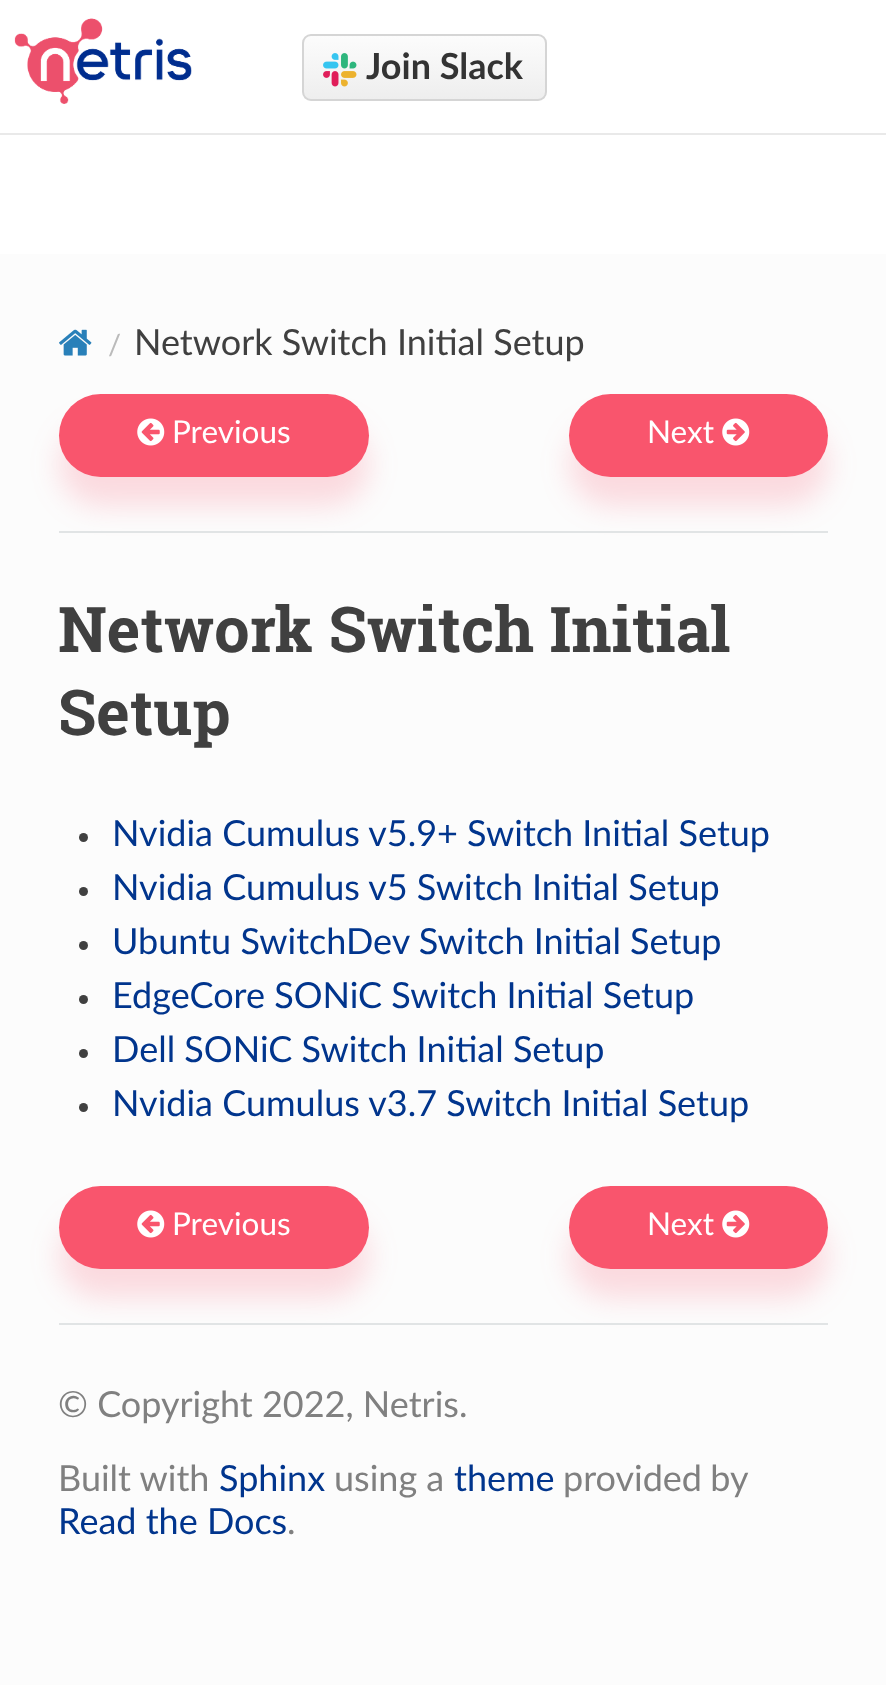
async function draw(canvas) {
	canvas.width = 886;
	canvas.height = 1685;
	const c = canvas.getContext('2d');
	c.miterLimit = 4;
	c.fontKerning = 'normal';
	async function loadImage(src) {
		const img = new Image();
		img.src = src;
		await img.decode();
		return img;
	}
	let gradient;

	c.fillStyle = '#fcfcfc';
	c.fillRect(0, 0, 886, 1685);
	c.fillStyle = '#fff';
	c.fillRect(0, 0, 886, 133);
	c.fillStyle = '#e9e9e9';
	c.fillRect(0, 133, 886, 2);
	c.drawImage(await loadImage('img1.png'), 14, 18, 178, 86);
	c.save();
	c.beginPath();
	c.roundRect(302, 34, 245, 67, 9);
	c.clip();
	gradient = c.createLinearGradient(424, 36, 424, 99);
	gradient.addColorStop(0, '#fcfcfc');
	gradient.addColorStop(1, '#eee');
	c.fillStyle = gradient;
	c.fillRect(304, 36, 241, 63);
	c.restore();
	c.beginPath();
	c.roundRect(303, 35, 243, 65, 8);
	c.strokeStyle = '#d5d5d5';
	c.lineWidth = 2;
	c.stroke();
	c.drawImage(await loadImage('img2.png'), 323, 53, 34, 34);
	c.font = 'bold 36px Lato';
	c.fillStyle = '#333';
	c.fillText('Join Slack', 366, 79);
	c.fillStyle = '#fff';
	c.fillRect(0, 135, 886, 119);
	c.drawImage(await loadImage('img3.png'), 59, 329, 33, 27);
	c.font = '29px Lato';
	c.fillStyle = '#bbb';
	c.fillText('/', 108, 355);
	c.font = '36px Lato';
	c.fillStyle = '#404040';
	c.fillText('Network Switch Initial Setup', 134, 355);
	c.fillStyle = '#f9556d33';
	c.filter = 'blur(14.5px)';
	c.beginPath();
	c.roundRect(59, 423, 310, 83, 41.5);
	c.fill();
	c.filter = 'none';
	c.fillStyle = '#f9556d';
	c.beginPath();
	c.roundRect(59, 394, 310, 83, 41.5);
	c.fill();
	c.drawImage(await loadImage('img4.png'), 137, 418, 28, 28);
	c.font = '31.5px Lato';
	c.fillStyle = '#fff';
	c.fillText('Previous', 172, 443);
	c.fillStyle = '#f9556d33';
	c.filter = 'blur(14.5px)';
	c.beginPath();
	c.roundRect(569, 423, 259, 83, 41.5);
	c.fill();
	c.filter = 'none';
	c.fillStyle = '#f9556d';
	c.beginPath();
	c.roundRect(569, 394, 259, 83, 41.5);
	c.fill();
	c.fillStyle = '#fff';
	c.fillText('Next', 647, 443);
	c.drawImage(await loadImage('img5.png'), 722, 418, 28, 28);
	c.fillStyle = '#e1e4e5';
	c.fillRect(59, 531, 769, 2);
	c.font = 'bold 63px Roboto Slab';
	c.fillStyle = '#404040';
	c.fillText('Network Switch Initial', 58, 652);
	c.fillText('Setup', 58, 735);
	c.beginPath();
	c.arc(83.5, 837.5, 4.5, 0, 2 * Math.PI);
	c.fill();
	c.font = '36px Lato';
	c.fillStyle = '#01358d';
	c.fillText('Nvidia Cumulus v5.9+ Switch Initial Setup', 112, 846);
	c.fillStyle = '#404040';
	c.beginPath();
	c.arc(83.5, 891.5, 4.5, 0, 2 * Math.PI);
	c.fill();
	c.fillStyle = '#01358d';
	c.fillText('Nvidia Cumulus v5 Switch Initial Setup', 112, 900);
	c.fillStyle = '#404040';
	c.beginPath();
	c.arc(83.5, 945.5, 4.5, 0, 2 * Math.PI);
	c.fill();
	c.fillStyle = '#01358d';
	c.fillText('Ubuntu SwitchDev Switch Initial Setup', 112, 954);
	c.fillStyle = '#404040';
	c.beginPath();
	c.arc(83.5, 999.5, 4.5, 0, 2 * Math.PI);
	c.fill();
	c.fillStyle = '#01358d';
	c.fillText('EdgeCore SONiC Switch Initial Setup', 112, 1008);
	c.fillStyle = '#404040';
	c.beginPath();
	c.arc(83.5, 1053.5, 4.5, 0, 2 * Math.PI);
	c.fill();
	c.fillStyle = '#01358d';
	c.fillText('Dell SONiC Switch Initial Setup', 112, 1062);
	c.fillStyle = '#404040';
	c.beginPath();
	c.arc(83.5, 1107.5, 4.5, 0, 2 * Math.PI);
	c.fill();
	c.fillStyle = '#01358d';
	c.fillText('Nvidia Cumulus v3.7 Switch Initial Setup', 112, 1116);
	c.fillStyle = '#f9556d33';
	c.filter = 'blur(14.5px)';
	c.beginPath();
	c.roundRect(59, 1215, 310, 83, 41.5);
	c.fill();
	c.filter = 'none';
	c.fillStyle = '#f9556d';
	c.beginPath();
	c.roundRect(59, 1186, 310, 83, 41.5);
	c.fill();
	c.drawImage(await loadImage('img4.png'), 137, 1210, 28, 28);
	c.font = '31.5px Lato';
	c.fillStyle = '#fff';
	c.fillText('Previous', 172, 1235);
	c.fillStyle = '#f9556d33';
	c.filter = 'blur(14.5px)';
	c.beginPath();
	c.roundRect(569, 1215, 259, 83, 41.5);
	c.fill();
	c.filter = 'none';
	c.fillStyle = '#f9556d';
	c.beginPath();
	c.roundRect(569, 1186, 259, 83, 41.5);
	c.fill();
	c.fillStyle = '#fff';
	c.fillText('Next', 647, 1235);
	c.drawImage(await loadImage('img5.png'), 722, 1210, 28, 28);
	c.fillStyle = '#e1e4e5';
	c.fillRect(59, 1323, 769, 2);
	c.font = '36px Lato';
	c.fillStyle = '#808080';
	c.fillText('© Copyright 2022, Netris.', 58, 1417);
	c.fillText('Built with', 58, 1491);
	c.fillStyle = '#01358d';
	c.fillText('Sphinx', 219, 1491);
	c.fillStyle = '#808080';
	c.fillText('using a', 334, 1491);
	c.fillStyle = '#01358d';
	c.fillText('theme', 454, 1491);
	c.wordSpacing = '-1px';
	c.fillStyle = '#808080';
	c.fillText('provided by', 563, 1491);
	c.wordSpacing = '0px';
	c.fillStyle = '#01358d';
	c.fillText('Read the Docs', 58, 1534);
	c.fillStyle = '#808080';
	c.fillText('.', 287, 1534);
}

draw(document.querySelector('canvas'));
